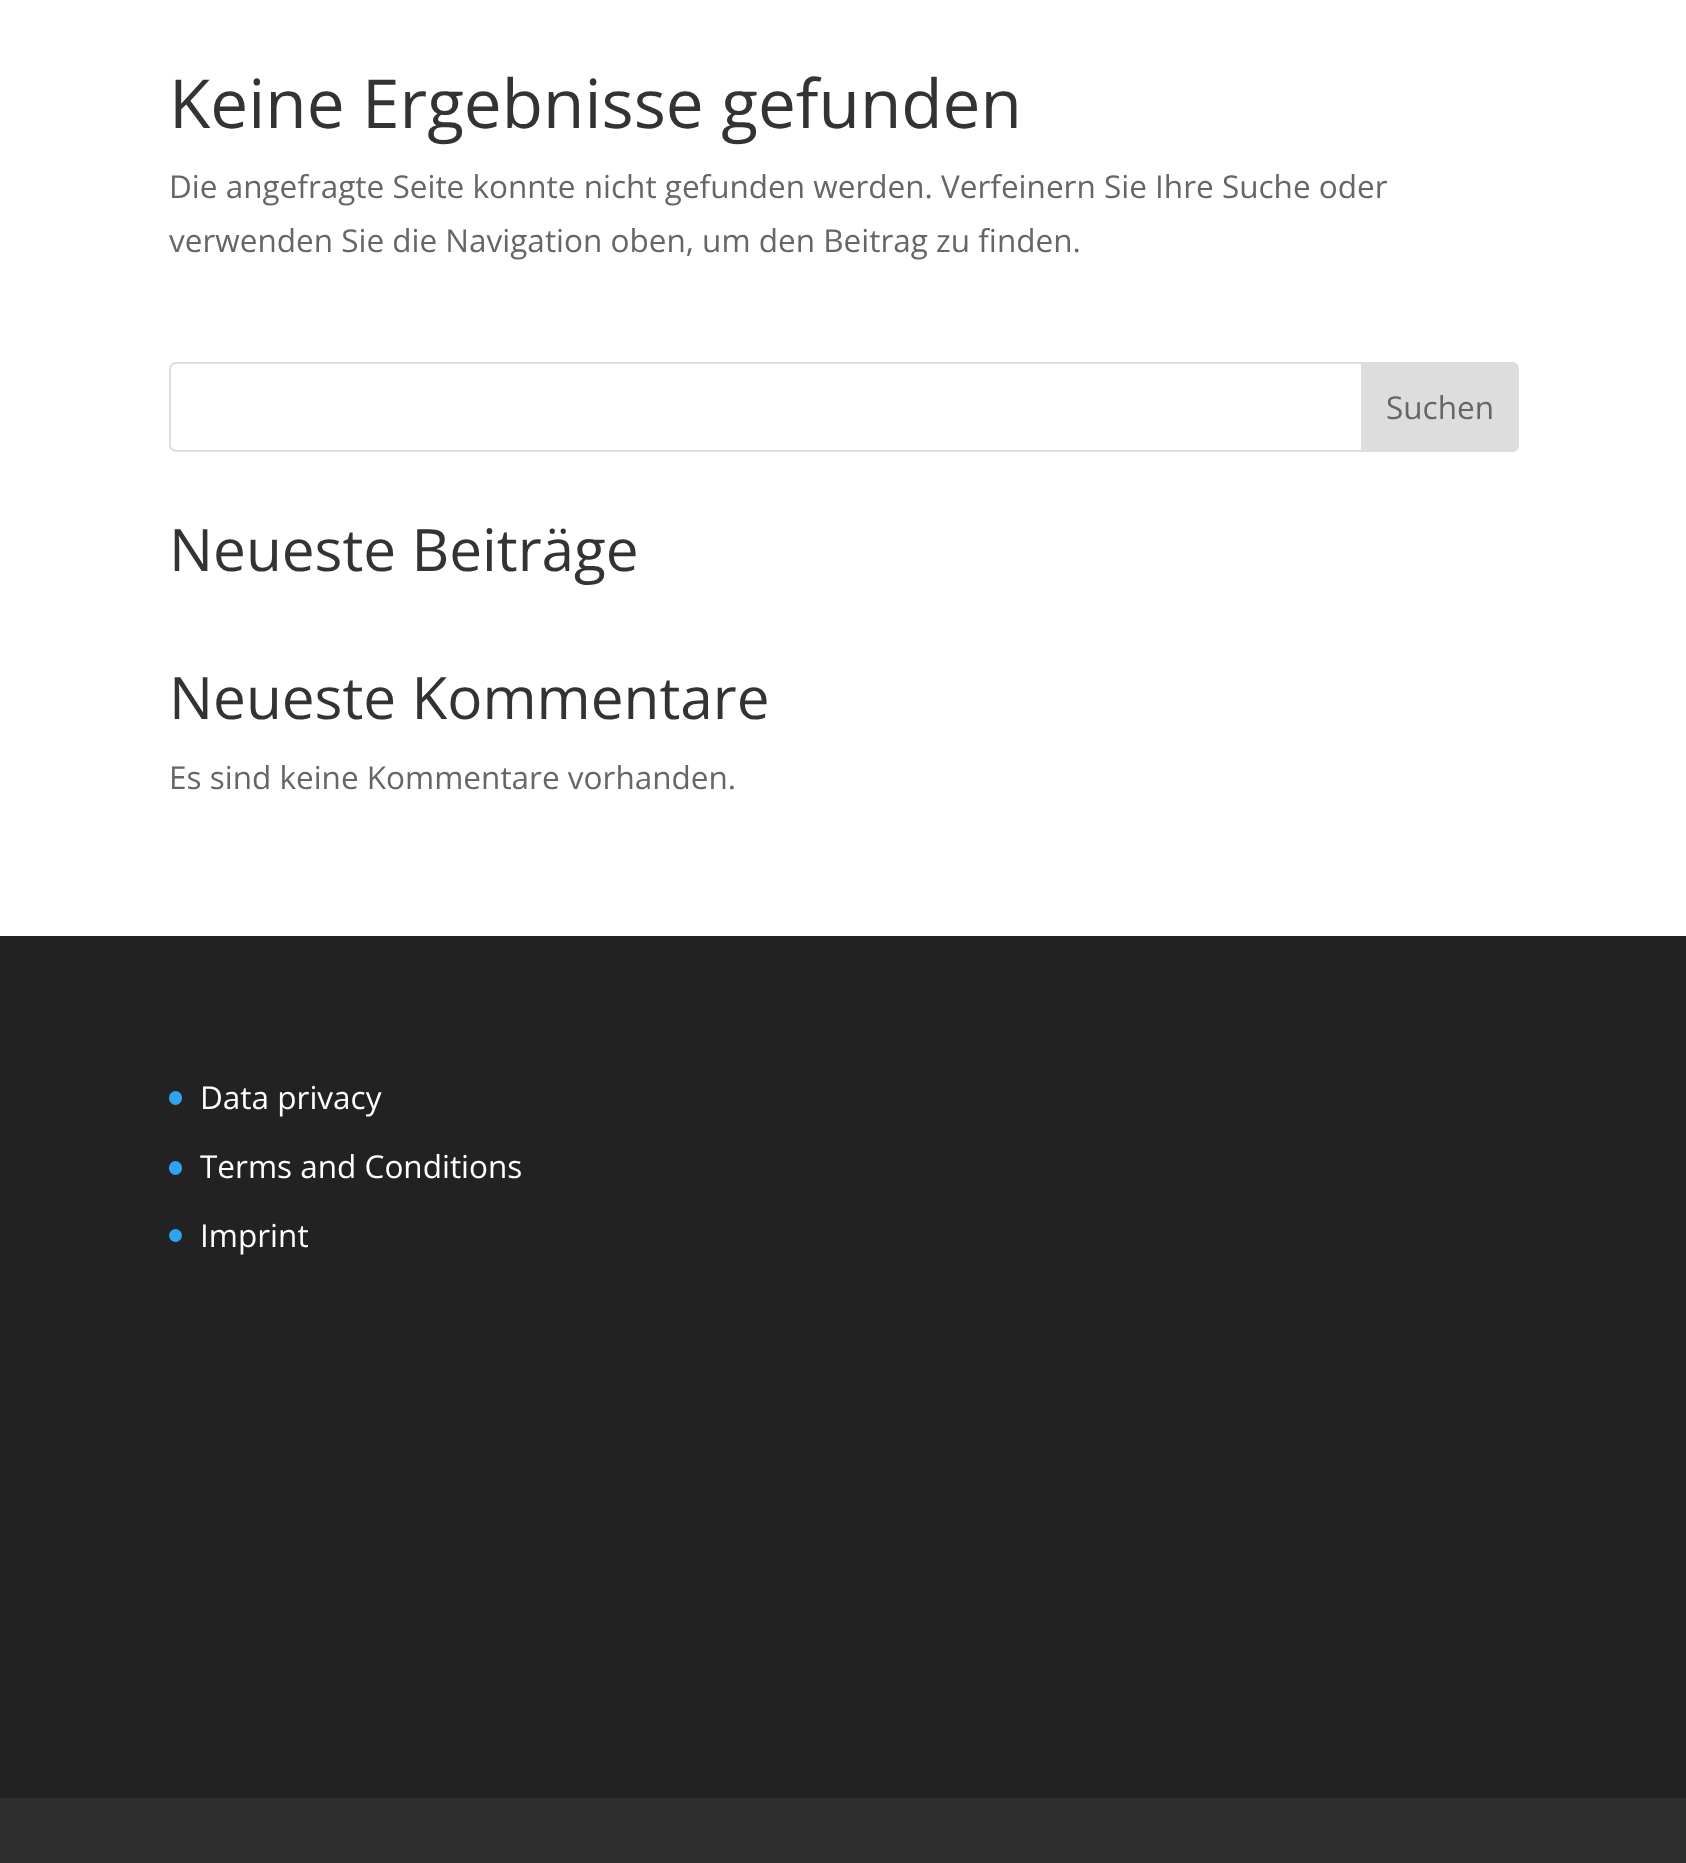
async function draw(canvas) {
	canvas.width = 1686;
	canvas.height = 1863;
	const c = canvas.getContext('2d');
	c.miterLimit = 4;
	c.fontKerning = 'normal';

	c.fillStyle = '#fff';
	c.fillRect(0, 0, 1686, 1863);
	c.font = '67.5px Open Sans';
	c.fillStyle = '#333';
	c.fillText('Keine Ergebnisse gefunden', 169, 128);
	c.font = '31.5px Open Sans';
	c.fillStyle = '#666';
	c.fillText('Die angefragte Seite konnte nicht gefunden werden. Verfeinern Sie Ihre Suche oder', 169, 198);
	c.fillText('verwenden Sie die Navigation oben, um den Beitrag zu finden.', 169, 252);
	c.beginPath();
	c.roundRect(170, 363, 1348, 88, 6);
	c.strokeStyle = '#ddd';
	c.lineWidth = 2;
	c.stroke();
	c.fillStyle = '#ddd';
	c.beginPath();
	c.roundRect(1362, 363, 156, 88, [0, 6, 6, 0]);
	c.fill();
	c.stroke();
	c.fillStyle = '#666';
	c.fillText('Suchen', 1386, 419);
	c.font = '58.5px Open Sans';
	c.fillStyle = '#333';
	c.fillText('Neueste Beiträge', 169, 571);
	c.fillText('Neueste Kommentare', 169, 719);
	c.font = '31.5px Open Sans';
	c.fillStyle = '#666';
	c.fillText('Es sind keine Kommentare vorhanden.', 169, 789);
	c.fillStyle = '#222';
	c.fillRect(0, 936, 1686, 862);
	c.fillStyle = '#2ea3f2';
	c.beginPath();
	c.roundRect(169, 1091, 13, 14, 6.5);
	c.fill();
	c.fillStyle = '#fff';
	c.fillText('Data privacy', 200, 1109);
	c.fillStyle = '#2ea3f2';
	c.beginPath();
	c.roundRect(169, 1161, 13, 14, 6.5);
	c.fill();
	c.fillStyle = '#fff';
	c.fillText('Terms and Conditions', 200, 1178);
	c.fillStyle = '#2ea3f2';
	c.beginPath();
	c.arc(175.5, 1235.5, 6.5, 0, 2 * Math.PI);
	c.fill();
	c.fillStyle = '#fff';
	c.fillText('Imprint', 200, 1247);
	c.fillStyle = '#2d2d2d';
	c.fillRect(0, 1798, 1686, 65);
}

draw(document.querySelector('canvas'));
